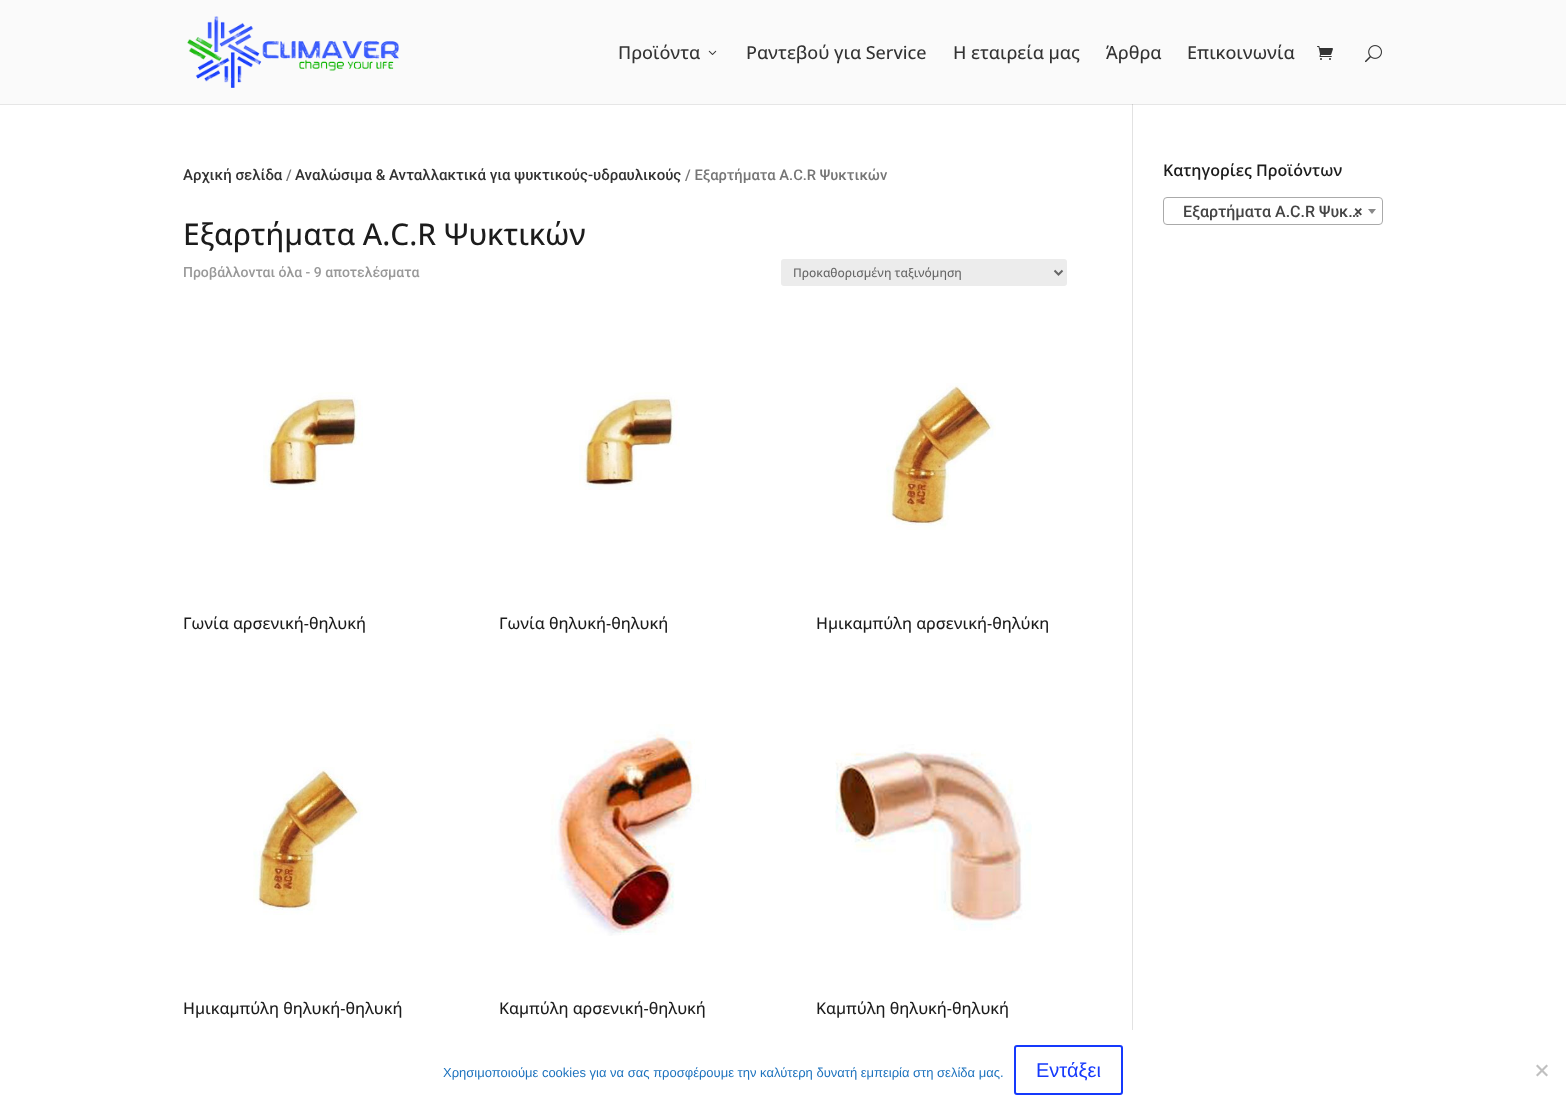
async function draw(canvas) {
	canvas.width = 1566;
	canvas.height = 1110;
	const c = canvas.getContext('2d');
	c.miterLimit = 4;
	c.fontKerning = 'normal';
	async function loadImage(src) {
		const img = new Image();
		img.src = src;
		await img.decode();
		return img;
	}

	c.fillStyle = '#fff';
	c.fillRect(0, 0, 1566, 1110);
	c.fillStyle = '#e6e6e6';
	c.fillRect(0, 104, 1566, 1);
	c.fillStyle = '#fafafa';
	c.fillRect(0, 0, 1566, 104);
	c.drawImage(await loadImage('img1.png'), 187, 16, 212, 72);
	c.font = '500 18px Open Sans';
	c.fillStyle = '#333';
	c.fillText('Προϊόντα', 618, 59);
	c.drawImage(await loadImage('img2.png'), 708, 50, 9, 5);
	for (const [text, x, y] of [
		['Ραντεβού για Service', 746, 59],
		['Η εταιρεία μας', 953, 59],
		['Άρθρα', 1106, 59],
		['Επικοινωνία', 1187, 59],
	]) {
		c.fillText(text, x, y);
	}
	c.drawImage(await loadImage('img3.png'), 1317, 46, 16, 14);
	c.drawImage(await loadImage('img4.png'), 1365, 45, 17, 18);
	c.fillStyle = '#e2e2e2';
	c.fillRect(1132, 104, 1, 926);
	c.fillStyle = '#cbcbcb';
	c.fillRect(1132, 104, 1, 1);
	c.font = '500 15px Roboto';
	c.fillStyle = '#333';
	c.fillText('Αρχική σελίδα', 183, 180);
	c.font = '500 14.75px Roboto';
	c.fillStyle = '#767676';
	c.fillText('/', 286, 180);
	c.font = '500 15px Roboto';
	c.fillStyle = '#333';
	c.fillText('Αναλώσιμα & Ανταλλακτικά για ψυκτικούς-υδραυλικούς', 295, 180);
	c.font = '500 14.75px Roboto';
	c.fillStyle = '#767676';
	c.fillText('/ Εξαρτήματα A.C.R Ψυκτικών', 685, 180);
	c.font = '500 30px Open Sans';
	c.fillStyle = '#1c1c1c';
	c.fillText('Εξαρτήματα A.C.R Ψυκτικών', 183, 245);
	c.font = '500 14px Roboto';
	c.fillStyle = '#999';
	c.fillText('Προβάλλονται όλα - 9 αποτελέσματα', 183, 277);
	c.fillStyle = '#ececec';
	c.beginPath();
	c.roundRect(781, 259, 286, 27, 3);
	c.fill();
	c.beginPath();
	c.moveTo(1054.5, 270.5);
	c.lineTo(1058.5, 274.5);
	c.lineTo(1062.5, 270.5);
	c.strokeStyle = '#666';
	c.lineWidth = 2;
	c.stroke();
	c.font = '500 12px Open Sans';
	c.fillStyle = '#666';
	c.fillText('Προκαθορισμένη ταξινόμηση', 793, 277);
	c.drawImage(await loadImage('img5.png'), 263, 392, 100, 98);
	c.font = '500 16px Open Sans';
	c.fillStyle = '#1c1c1c';
	c.fillText('Γωνία αρσενική-θηλυκή', 183, 629);
	c.drawImage(await loadImage('img6.png'), 579, 392, 101, 98);
	c.fillText('Γωνία θηλυκή-θηλυκή', 499, 629);
	c.drawImage(await loadImage('img7.png'), 886, 383, 110, 147);
	c.fillText('Ημικαμπύλη αρσενική-θηλύκη', 816, 629);
	c.drawImage(await loadImage('img8.png'), 253, 767, 110, 148);
	c.fillText('Ημικαμπύλη θηλυκή-θηλυκή', 183, 1014);
	c.drawImage(await loadImage('img9.png'), 550, 724, 156, 212);
	c.fillText('Καμπύλη αρσενική-θηλυκή', 499, 1014);
	c.drawImage(await loadImage('img10.png'), 835, 744, 197, 187);
	c.fillText('Καμπύλη θηλυκή-θηλυκή', 816, 1014);
	c.font = '600 16px Open Sans';
	c.fillText('Κατηγορίες Προϊόντων', 1163, 176);
	c.beginPath();
	c.roundRect(1163.5, 197.5, 219, 27, 3.5);
	c.strokeStyle = '#aaa';
	c.lineWidth = 1;
	c.stroke();
	c.font = '500 16px Roboto';
	c.fillStyle = '#444';
	c.fillText('Εξαρτήματα A.C.R Ψυκ…', 1183, 217);
	c.font = 'bold 16px Roboto';
	c.fillText('×', 1354, 217);
	c.fillStyle = '#888';
	c.beginPath();
	c.moveTo(1368, 209);
	c.lineTo(1376, 209);
	c.lineTo(1372, 214);
	c.closePath();
	c.fill();
	c.font = '13px Liberation Sans';
	c.fillStyle = '#1e73be';
	c.fillText('Χρησιμοποιούμε cookies για να σας προσφέρουμε την καλύτερη δυνατή εμπειρία στη σελίδα μας.', 443, 1077);
	c.beginPath();
	c.roundRect(1015, 1046, 107, 48, 2);
	c.strokeStyle = '#1539fc';
	c.lineWidth = 2;
	c.stroke();
	c.font = '20px Liberation Sans';
	c.fillStyle = '#1539fc';
	c.fillText('Εντάξει', 1036, 1077);
	c.fillStyle = '#c0c0c0';
	c.beginPath();
	c.moveTo(1546.5, 1064.5);
	c.lineTo(1548, 1066);
	c.lineTo(1537.5, 1076.5);
	c.lineTo(1536, 1075);
	c.closePath();
	c.fill();
	c.beginPath();
	c.moveTo(1536, 1066);
	c.lineTo(1537.5, 1064.5);
	c.lineTo(1548, 1075);
	c.lineTo(1546.5, 1076.5);
	c.closePath();
	c.fill();
}

draw(document.querySelector('canvas'));
